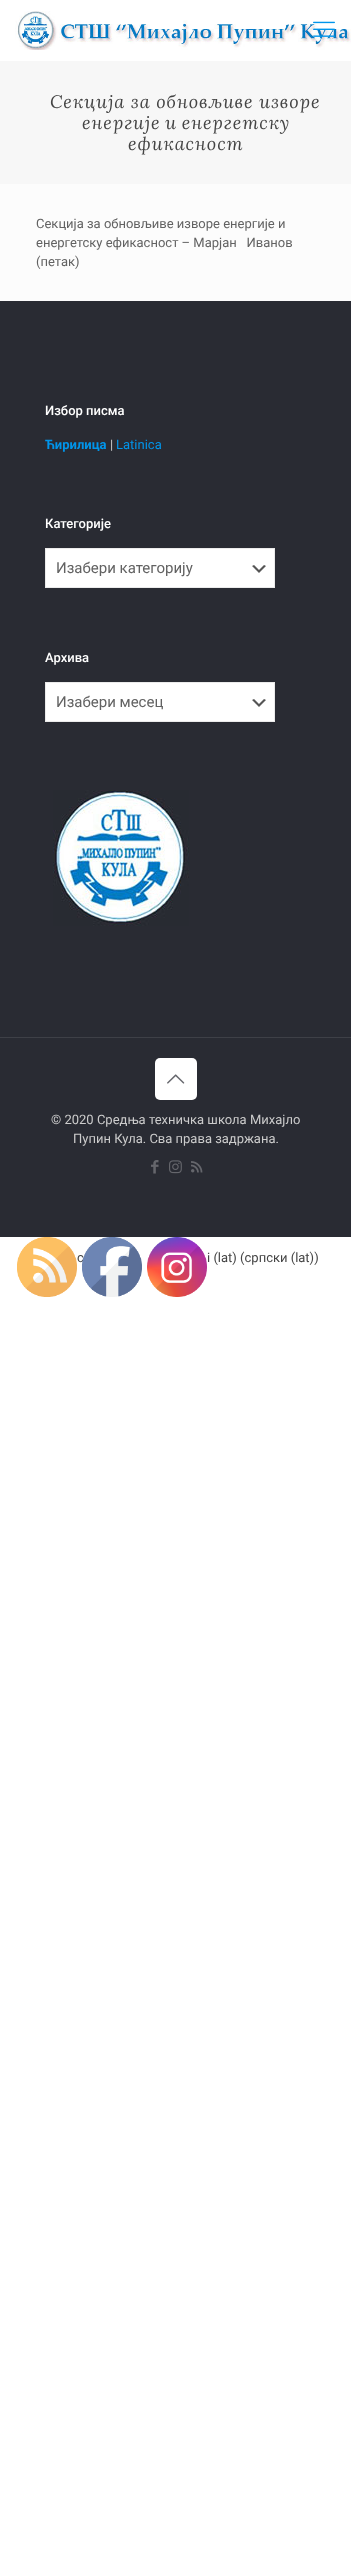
async function draw(canvas) {
	canvas.width = 351;
	canvas.height = 2566;
	const c = canvas.getContext('2d');
	c.miterLimit = 4;
	c.fontKerning = 'normal';
	async function loadImage(src) {
		const img = new Image();
		img.src = src;
		await img.decode();
		return img;
	}

	c.fillStyle = '#fff';
	c.fillRect(0, 0, 351, 2566);
	c.fillStyle = '#fcfcfc';
	c.fillRect(0, 184, 351, 117);
	c.drawImage(await loadImage('img1.png'), 15, 11, 336, 39);
	c.drawImage(await loadImage('img2.png'), 313, 21, 22, 16);
	c.fillStyle = '#f7f7f7';
	c.fillRect(0, 61, 351, 123);
	c.letterSpacing = '1px';
	c.font = 'italic 18px Lora';
	c.fillStyle = '#444';
	c.fillText('Секција за обновљиве изворе', 50, 108);
	c.wordSpacing = '-1px';
	c.fillText('енергије и енергетску', 82, 129);
	c.wordSpacing = '0px';
	c.fillText('ефикасност', 128, 150);
	c.letterSpacing = '0px';
	c.font = '13px Roboto';
	c.fillStyle = '#626262';
	for (const [text, x, y] of [
		['Секција за обновљиве изворе енергије и', 36, 228],
		['енергетску ефикасност – Марјан   Иванов', 36, 247],
		['(петак)', 36, 266],
	]) {
		c.fillText(text, x, y);
	}
	c.fillStyle = '#292b33';
	c.fillRect(0, 301, 351, 936);
	c.font = '500 13px Roboto';
	c.fillStyle = '#fff';
	c.fillText('Избор писма', 45, 415);
	c.font = 'bold 13px Roboto';
	c.fillStyle = '#0095eb';
	c.fillText('Ћирилица', 45, 449);
	c.font = '13px Roboto';
	c.fillStyle = '#ccc';
	c.fillText('|', 110, 449);
	c.fillStyle = '#0095eb';
	c.fillText('Latinica', 116, 449);
	c.font = '500 13px Roboto';
	c.fillStyle = '#fff';
	c.fillText('Категорије', 45, 528);
	c.fillRect(46, 549, 228, 38);
	c.drawImage(await loadImage('img3.png'), 252, 565, 14, 8);
	c.strokeStyle = '#ebebeb';
	c.strokeRect(45.5, 548.5, 229, 39);
	c.font = '15px Roboto';
	c.fillStyle = '#626262';
	c.fillText('Изабери категорију', 56, 573);
	c.font = '500 13px Roboto';
	c.fillStyle = '#fff';
	c.fillText('Архива', 45, 662);
	c.fillRect(46, 683, 228, 38);
	c.drawImage(await loadImage('img3.png'), 252, 699, 14, 8);
	c.strokeRect(45.5, 682.5, 229, 39);
	c.font = '15px Roboto';
	c.fillStyle = '#626262';
	c.fillText('Изабери месец', 56, 707);
	c.drawImage(await loadImage('img4.png'), 53, 790, 136, 136);
	c.fillStyle = '#3e4047';
	c.fillRect(0, 1037, 351, 1);
	c.fillStyle = '#fff';
	c.beginPath();
	c.roundRect(155, 1058, 42, 42, 5);
	c.fill();
	c.drawImage(await loadImage('img5.png'), 167, 1074, 18, 10);
	c.font = '13px Roboto';
	c.fillStyle = '#ccc';
	c.fillText('© 2020 Средња техничка школа Михајло', 51, 1124);
	c.fillText('Пупин Кула. Сва права задржана.', 73, 1143);
	c.drawImage(await loadImage('img6.png'), 151, 1160, 8, 14);
	c.drawImage(await loadImage('img7.png'), 169, 1160, 13, 14);
	c.drawImage(await loadImage('img8.png'), 191, 1161, 12, 12);
	c.drawImage(await loadImage('img9.png'), 17, 1237, 60, 60);
	c.fillStyle = '#444';
	c.fillText('с', 77, 1262);
	c.drawImage(await loadImage('img10.png'), 82, 1237, 60, 60);
	c.drawImage(await loadImage('img11.png'), 147, 1237, 60, 60);
	c.fillText('i (lat) (српски (lat))', 207, 1262);
}

draw(document.querySelector('canvas'));
